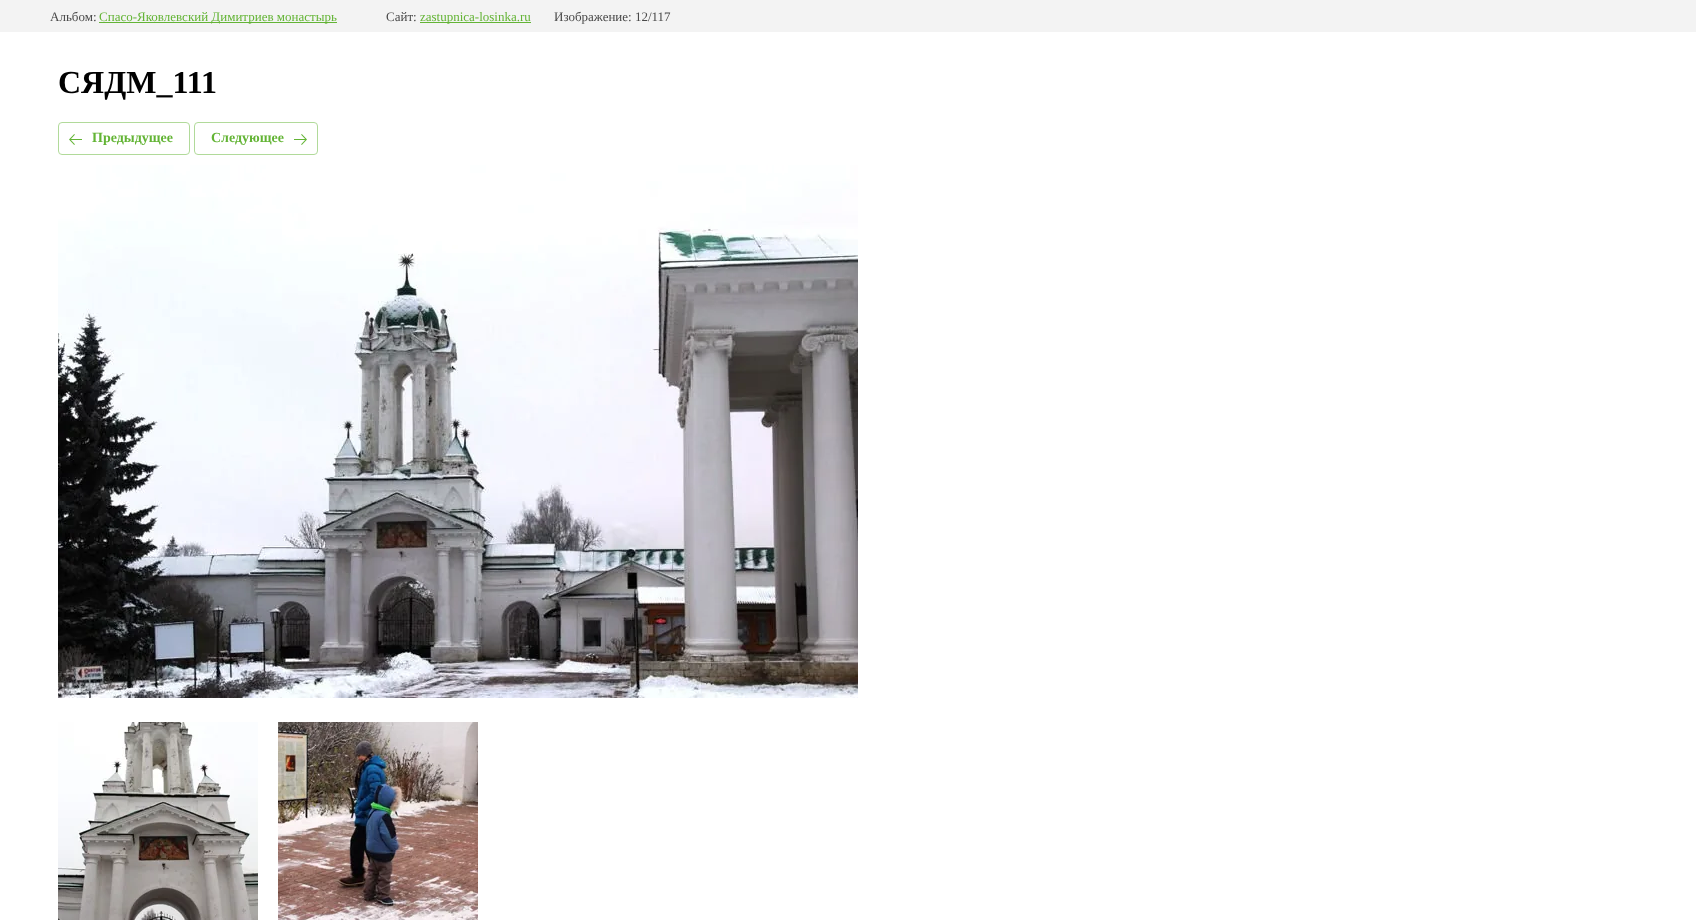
async function draw(canvas) {
	canvas.width = 1696;
	canvas.height = 920;
	const c = canvas.getContext('2d');
	c.miterLimit = 4;
	c.fontKerning = 'normal';
	async function loadImage(src) {
		const img = new Image();
		img.src = src;
		await img.decode();
		return img;
	}

	c.fillStyle = '#fff';
	c.fillRect(0, 0, 1696, 920);
	c.fillStyle = '#f3f3f3';
	c.fillRect(0, 0, 1696, 32);
	c.font = '13px Liberation Serif';
	c.fillStyle = '#484848';
	c.fillText('Альбом:', 50, 21);
	c.fillStyle = '#63b435';
	c.fillRect(99, 22, 238, 1);
	c.fillText('Спасо-Яковлевский Димитриев монастырь', 99, 21);
	c.fillStyle = '#484848';
	c.fillText('Сайт:', 386, 21);
	c.fillStyle = '#63b435';
	c.fillRect(420, 22, 111, 1);
	c.fillText('zastupnica-losinka.ru', 420, 21);
	c.fillStyle = '#484848';
	c.fillText('Изображение: 12/117', 554, 21);
	c.font = 'bold 32px Liberation Serif';
	c.fillStyle = '#000';
	c.fillText('СЯДМ_111', 58, 93);
	c.beginPath();
	c.roundRect(58.5, 122.5, 131, 32, 3.5);
	c.strokeStyle = '#b1da9a';
	c.stroke();
	c.drawImage(await loadImage('img1.png'), 69, 134, 13, 11);
	c.font = 'bold 14px Liberation Serif';
	c.fillStyle = '#63b435';
	c.fillText('Предыдущее', 92, 142);
	c.beginPath();
	c.roundRect(194.5, 122.5, 123, 32, 3.5);
	c.stroke();
	c.fillText('Следующее', 211, 142);
	c.drawImage(await loadImage('img2.png'), 294, 134, 13, 11);
	c.drawImage(await loadImage('img3.png'), 58, 165, 800, 533);
	c.drawImage(await loadImage('img4.png'), 58, 722, 200, 198);
	c.drawImage(await loadImage('img5.png'), 278, 722, 200, 198);
}

draw(document.querySelector('canvas'));
